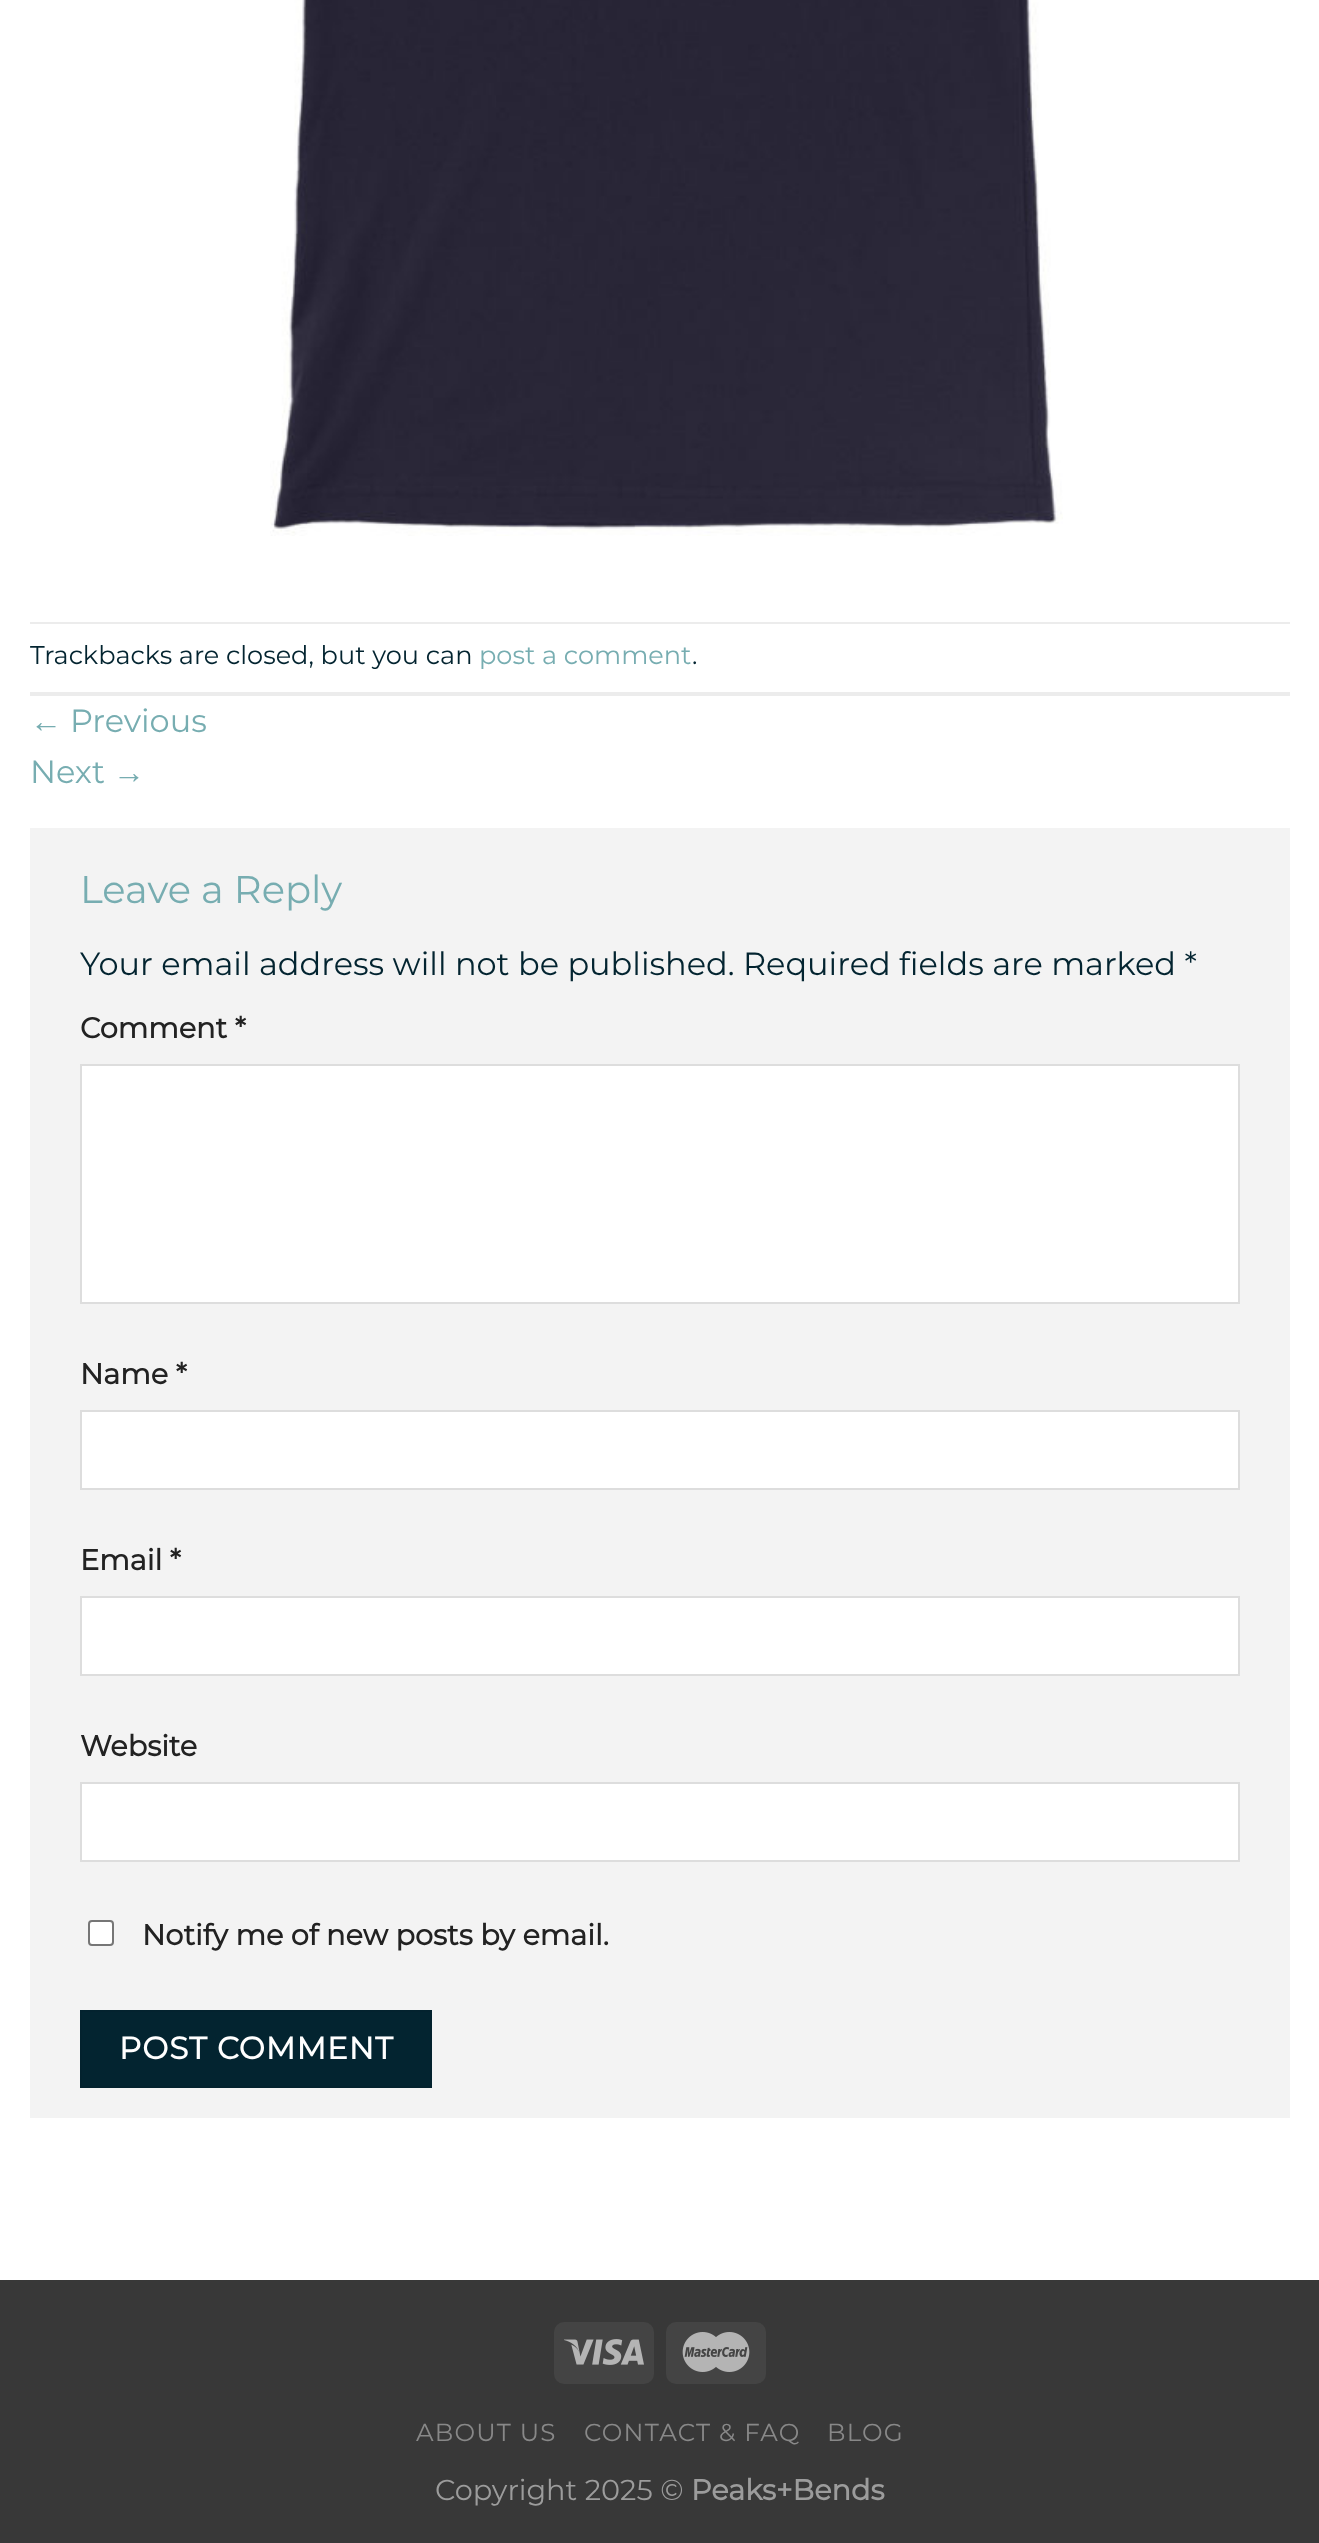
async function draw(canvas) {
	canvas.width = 1319;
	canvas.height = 2543;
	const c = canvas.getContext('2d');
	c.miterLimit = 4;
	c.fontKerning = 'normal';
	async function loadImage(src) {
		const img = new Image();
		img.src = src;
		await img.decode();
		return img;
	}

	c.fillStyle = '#fff';
	c.fillRect(0, 0, 1319, 2543);
	c.drawImage(await loadImage('img1.png'), 270, 0, 793, 536);
	c.fillStyle = '#ececec';
	c.fillRect(30, 622, 1260, 2);
	c.fillRect(30, 692, 1260, 4);
	c.font = '25.6px Montserrat';
	c.fillStyle = '#032430';
	c.fillText('Trackbacks are closed, but you can', 30, 664);
	c.fillStyle = '#77adb1';
	c.fillText('post a comment', 479, 664);
	c.fillStyle = '#032430';
	c.fillText('.', 692, 664);
	c.font = '32px Liberation Sans';
	c.fillStyle = '#77adb1';
	c.fillText('←', 30, 732);
	c.font = '32px Montserrat';
	c.fillText('Previous', 70, 732);
	c.fillText('Next', 30, 783);
	c.font = '32px Liberation Sans';
	c.fillText('→', 113, 783);
	c.fillStyle = '#f3f3f3';
	c.fillRect(30, 828, 1260, 1290);
	c.font = '38.5px Montserrat';
	c.fillStyle = '#77adb1';
	c.fillText('Leave a Reply', 80, 903);
	c.font = '32px Montserrat';
	c.fillStyle = '#032430';
	c.fillText('Your email address will not be published. Required fields are marked *', 80, 975);
	c.font = 'bold 28.75px Montserrat';
	c.fillStyle = '#222';
	c.fillText('Comment *', 80, 1038);
	c.fillStyle = '#fff';
	c.beginPath();
	c.rect(81, 1065, 1158, 238);
	c.fill();
	c.strokeStyle = '#ddd';
	c.lineWidth = 2;
	c.stroke();
	c.fillStyle = '#222';
	c.fillText('Name *', 80, 1384);
	c.fillStyle = '#fff';
	c.beginPath();
	c.rect(81, 1411, 1158, 78);
	c.fill();
	c.stroke();
	c.fillStyle = '#222';
	c.fillText('Email *', 80, 1570);
	c.fillStyle = '#fff';
	c.beginPath();
	c.rect(81, 1597, 1158, 78);
	c.fill();
	c.stroke();
	c.fillStyle = '#222';
	c.fillText('Website', 80, 1756);
	c.fillStyle = '#fff';
	c.beginPath();
	c.rect(81, 1783, 1158, 78);
	c.fill();
	c.stroke();
	c.beginPath();
	c.roundRect(89, 1921, 24, 24, 3);
	c.fill();
	c.strokeStyle = '#767676';
	c.stroke();
	c.fillStyle = '#222';
	c.fillText('Notify me of new posts by email.', 142, 1945);
	c.fillStyle = '#032430';
	c.beginPath();
	c.rect(81, 2011, 350, 76);
	c.fill();
	c.strokeStyle = '#03222e';
	c.stroke();
	c.letterSpacing = '1px';
	c.font = 'bold 31px Montserrat';
	c.fillStyle = '#fff';
	c.fillText('POST COMMENT', 119, 2059);
	c.fillStyle = '#383838';
	c.fillRect(0, 2280, 1319, 263);
	c.fillStyle = '#444';
	c.beginPath();
	c.roundRect(554, 2322, 100, 62, 10);
	c.fill();
	c.drawImage(await loadImage('img2.png'), 564, 2339, 80, 26);
	c.beginPath();
	c.roundRect(666, 2322, 100, 62, 10);
	c.fill();
	c.drawImage(await loadImage('img3.png'), 682, 2332, 68, 40);
	c.letterSpacing = '1.25px';
	c.font = '24.5px Montserrat';
	c.fillStyle = '#888';
	for (const [text, x, y] of [
		['ABOUT US', 416, 2441],
		['CONTACT & FAQ', 584, 2441],
		['BLOG', 827, 2441],
	]) {
		c.fillText(text, x, y);
	}
	c.letterSpacing = '0px';
	c.font = '28.75px Montserrat';
	c.fillStyle = '#9c9c9c';
	c.fillText('Copyright 2025 ©', 435, 2500);
	c.font = 'bold 28.75px Montserrat';
	c.fillText('Peaks+Bends', 691, 2500);
}

draw(document.querySelector('canvas'));
